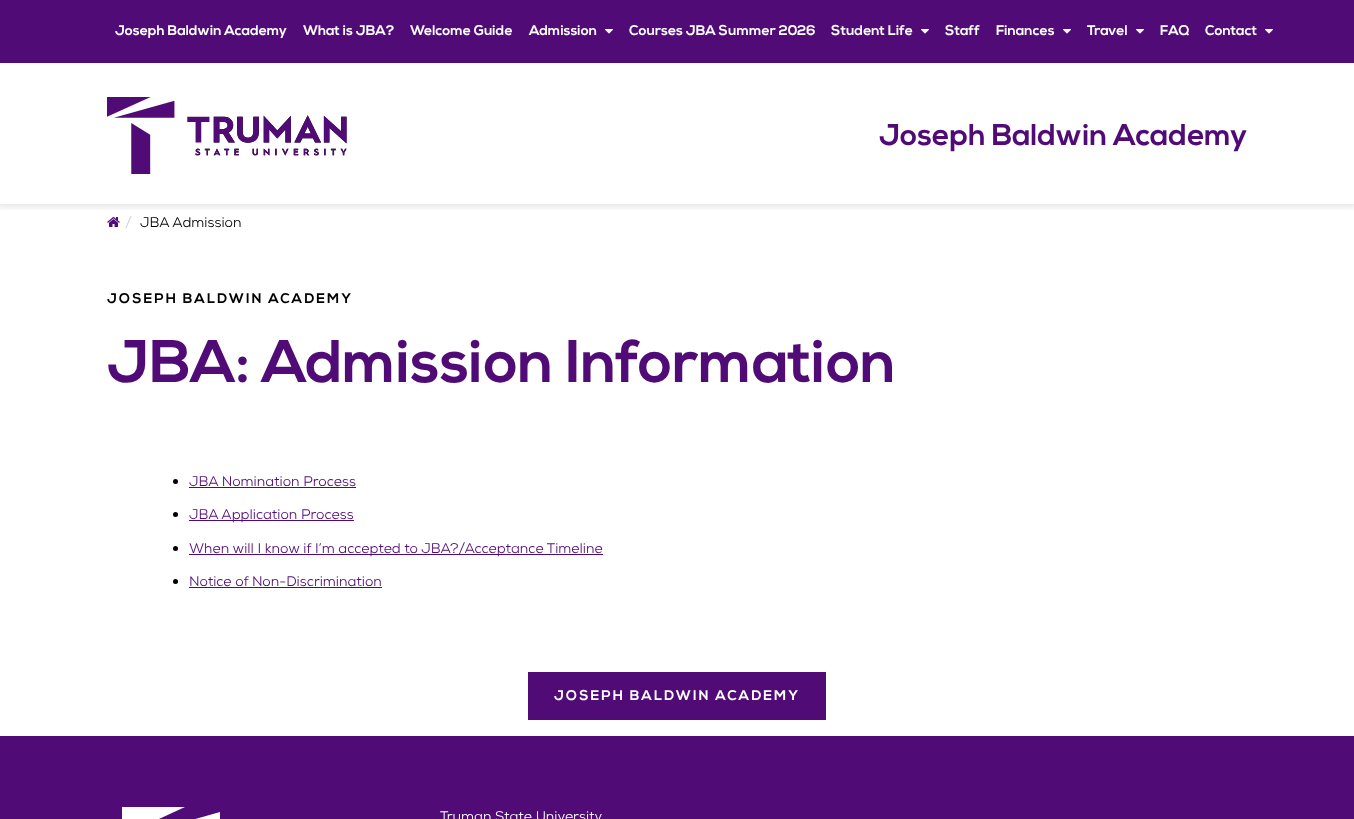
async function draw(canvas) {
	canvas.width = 1354;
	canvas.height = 819;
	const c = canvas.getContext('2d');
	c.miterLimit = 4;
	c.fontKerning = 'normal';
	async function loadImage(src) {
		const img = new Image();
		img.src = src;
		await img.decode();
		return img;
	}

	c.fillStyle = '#fff';
	c.fillRect(0, 0, 1354, 819);
	c.drawImage(await loadImage('img3.png'), 107, 217, 13, 10);
	c.save();
	c.beginPath();
	c.rect(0, 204, 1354, 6);
	c.clip();
	c.fillStyle = '#0000001a';
	c.filter = 'blur(3.5px)';
	c.beginPath();
	c.rect(-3, 60, 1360, 147);
	c.fill();
	c.filter = 'none';
	c.restore();
	c.fillStyle = '#510b76';
	c.fillRect(0, 0, 1354, 63);
	c.font = 'bold 14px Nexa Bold';
	c.fillStyle = '#fff';
	for (const [text, x, y] of [
		['Joseph Baldwin Academy', 115, 35],
		['What is JBA?', 303, 35],
		['Welcome Guide', 410, 35],
		['Admission', 529, 35],
	]) {
		c.fillText(text, x, y);
	}
	c.drawImage(await loadImage('img1.png'), 605, 29, 8, 5);
	c.fillText('Courses JBA Summer 2026', 629, 35);
	c.fillText('Student Life', 831, 35);
	c.drawImage(await loadImage('img1.png'), 921, 29, 8, 5);
	c.fillText('Staff', 945, 35);
	c.fillText('Finances', 996, 35);
	c.drawImage(await loadImage('img1.png'), 1063, 29, 8, 5);
	c.fillText('Travel', 1087, 35);
	c.drawImage(await loadImage('img1.png'), 1136, 29, 8, 5);
	c.fillText('FAQ', 1160, 35);
	c.fillText('Contact', 1205, 35);
	c.drawImage(await loadImage('img1.png'), 1265, 29, 8, 5);
	c.drawImage(await loadImage('img2.png'), 107, 97, 240, 77);
	c.font = 'bold 30px Nexa Bold';
	c.fillStyle = '#510b76';
	c.fillText('Joseph Baldwin Academy', 879, 145);
	c.font = '14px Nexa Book';
	c.fillStyle = '#ccc';
	c.fillText('/', 125, 227);
	c.fillStyle = '#000';
	c.fillText('JBA Admission', 140, 227);
	c.letterSpacing = '2px';
	c.font = 'bold 14px Nexa Bold';
	c.fillText('JOSEPH BALDWIN ACADEMY', 107, 303);
	c.letterSpacing = '0px';
	c.font = 'bold 60px Nexa Bold';
	c.fillStyle = '#510b76';
	c.fillText('JBA: Admission Information', 107, 382);
	c.fillStyle = '#000';
	c.beginPath();
	c.arc(175.5, 481.5, 2.5, 0, 2 * Math.PI);
	c.fill();
	c.font = '14px Nexa Book';
	c.fillStyle = '#510b76';
	c.fillText('JBA Nomination Process', 189, 486);
	c.fillRect(189, 487, 167, 1);
	c.fillStyle = '#000';
	c.beginPath();
	c.arc(175.5, 514.5, 2.5, 0, 2 * Math.PI);
	c.fill();
	c.fillStyle = '#510b76';
	c.fillRect(189, 520, 165, 1);
	c.fillText('JBA Application Process', 189, 519);
	c.fillStyle = '#000';
	c.beginPath();
	c.arc(175.5, 548.5, 2.5, 0, 2 * Math.PI);
	c.fill();
	c.fillStyle = '#510b76';
	c.fillRect(189, 554, 414, 1);
	c.fillText('When will I know if I’m accepted to JBA?/Acceptance Timeline', 189, 553);
	c.fillStyle = '#000';
	c.beginPath();
	c.arc(175.5, 581.5, 2.5, 0, 2 * Math.PI);
	c.fill();
	c.fillStyle = '#510b76';
	c.fillText('Notice of Non-Discrimination', 189, 586);
	c.fillRect(189, 587, 193, 1);
	c.fillRect(528, 672, 298, 48);
	c.letterSpacing = '2px';
	c.font = 'bold 14px Nexa Bold';
	c.fillStyle = '#fff';
	c.fillText('JOSEPH BALDWIN ACADEMY', 554, 700);
	c.fillStyle = '#510b76';
	c.fillRect(0, 736, 1354, 83);
	c.fillStyle = '#fff';
	c.beginPath();
	c.moveTo(122, 807);
	c.lineTo(122, 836);
	c.lineTo(185, 807);
	c.closePath();
	c.fill('evenodd');
	c.beginPath();
	c.moveTo(132, 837);
	c.lineTo(220, 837);
	c.lineTo(220, 812);
	c.closePath();
	c.fill('evenodd');
	c.letterSpacing = '0px';
	c.font = '14px Nexa Book';
	c.fillText('Truman State University', 440, 821);
}

draw(document.querySelector('canvas'));
